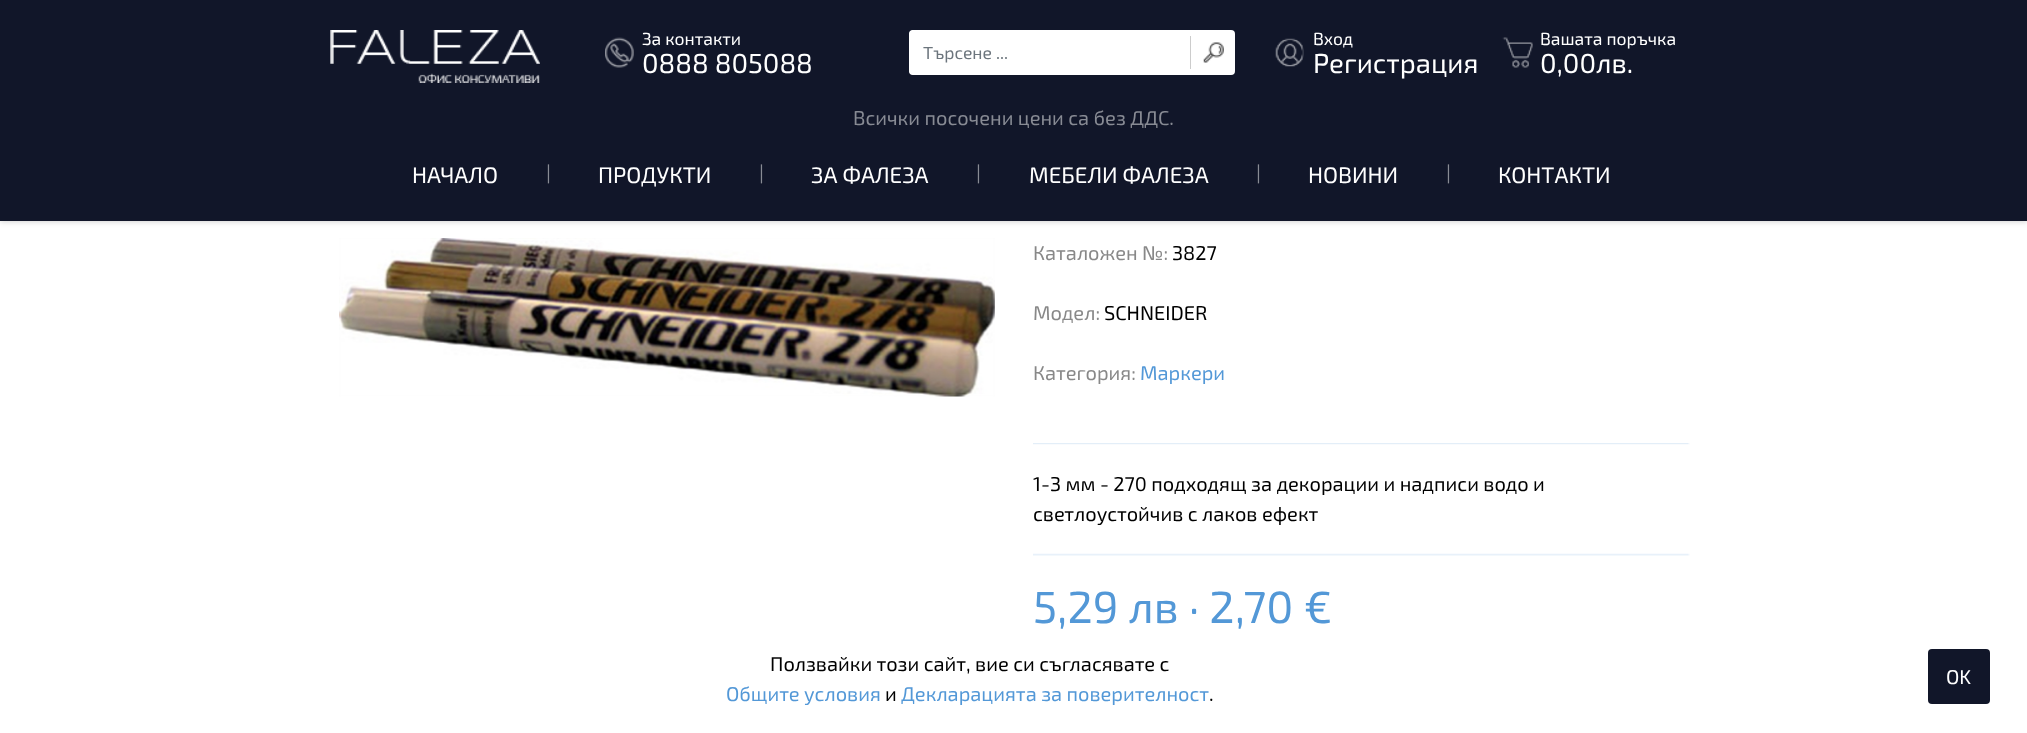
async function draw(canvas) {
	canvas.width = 2027;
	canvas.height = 733;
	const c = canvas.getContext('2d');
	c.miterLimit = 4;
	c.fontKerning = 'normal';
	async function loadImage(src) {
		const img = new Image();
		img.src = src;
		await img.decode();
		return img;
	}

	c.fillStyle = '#fff';
	c.fillRect(0, 0, 2027, 733);
	c.fillStyle = '#00000038';
	c.filter = 'blur(3px)';
	c.beginPath();
	c.rect(0, 0, 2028, 221);
	c.fill();
	c.filter = 'none';
	c.fillStyle = '#111629';
	c.fillRect(0, 0, 2027, 221);
	c.drawImage(await loadImage('img1.png'), 330, 30, 210, 53);
	c.drawImage(await loadImage('img2.png'), 605, 37, 29, 31);
	c.font = '17.5px "Exo 2"';
	c.fillStyle = '#fff';
	c.fillText('За контакти', 642, 45);
	c.font = '27.5px "Exo 2"';
	c.fillText('0888 805088', 642, 73);
	c.beginPath();
	c.roundRect(909, 30, 326, 45, 4);
	c.fill();
	c.save();
	c.beginPath();
	c.roundRect(909, 30, 326, 45, 4);
	c.clip();
	c.beginPath();
	c.roundRect(909, 30, 281, 45, [5, 0, 0, 5]);
	c.fill();
	c.restore();
	c.font = '17.5px "Exo 2"';
	c.fillStyle = '#6c757d';
	c.fillText('Търсене ...', 923, 59);
	c.drawImage(await loadImage('img3.png'), 1203, 42, 21, 21);
	c.fillStyle = '#ccc';
	c.fillRect(1190, 36, 1, 33);
	c.drawImage(await loadImage('img4.png'), 1275, 38, 29, 29);
	c.fillStyle = '#fff';
	c.fillText('Вход', 1313, 45);
	c.font = '27.5px "Exo 2"';
	c.fillText('Регистрация', 1313, 73);
	c.drawImage(await loadImage('img5.png'), 1502, 37, 31, 31);
	c.font = '17.5px "Exo 2"';
	c.fillText('Вашата поръчка', 1540, 45);
	c.font = '27.5px "Exo 2"';
	c.fillText('0,00лв.', 1540, 73);
	c.font = '20px "Exo 2"';
	c.fillStyle = '#888b94';
	c.fillText('Всички посочени цени са без ДДС.', 853, 125);
	c.font = '22.5px "Exo 2"';
	c.fillStyle = '#fff';
	c.fillText('НАЧАЛО', 412, 183);
	c.font = '20px "Exo 2"';
	c.fillStyle = '#888b94';
	c.fillText('|', 546, 180);
	c.font = '22.5px "Exo 2"';
	c.fillStyle = '#fff';
	c.fillText('ПРОДУКТИ', 598, 183);
	c.font = '20px "Exo 2"';
	c.fillStyle = '#888b94';
	c.fillText('|', 759, 180);
	c.font = '22.5px "Exo 2"';
	c.fillStyle = '#fff';
	c.fillText('ЗА ФАЛЕЗА', 811, 183);
	c.font = '20px "Exo 2"';
	c.fillStyle = '#888b94';
	c.fillText('|', 976, 180);
	c.font = '22.5px "Exo 2"';
	c.fillStyle = '#fff';
	c.fillText('МЕБЕЛИ ФАЛЕЗА', 1029, 183);
	c.font = '20px "Exo 2"';
	c.fillStyle = '#888b94';
	c.fillText('|', 1256, 180);
	c.font = '22.5px "Exo 2"';
	c.fillStyle = '#fff';
	c.fillText('НОВИНИ', 1308, 183);
	c.font = '20px "Exo 2"';
	c.fillStyle = '#888b94';
	c.fillText('|', 1446, 180);
	c.font = '22.5px "Exo 2"';
	c.fillStyle = '#fff';
	c.fillText('КОНТАКТИ', 1498, 183);
	c.drawImage(await loadImage('img6.png'), 339, 238, 656, 159);
	c.font = '20px "Exo 2"';
	c.fillStyle = '#888';
	c.fillText('Каталожен №:', 1033, 260);
	c.fillStyle = '#000';
	c.fillText('3827', 1172, 260);
	c.fillStyle = '#888';
	c.fillText('Модел:', 1033, 320);
	c.fillStyle = '#000';
	c.fillText('SCHNEIDER', 1104, 320);
	c.fillStyle = '#888';
	c.fillText('Категория:', 1033, 380);
	c.fillStyle = '#5398d7';
	c.fillText('Маркери', 1140, 380);
	c.drawImage(await loadImage('img7.png'), 1033, 443, 657, 2);
	c.fillStyle = '#000';
	c.fillText('1-3 мм - 270 подходящ за декорации и надписи водо и', 1033, 491);
	c.fillText('светлоустойчив с лаков ефект', 1033, 521);
	c.drawImage(await loadImage('img8.png'), 1033, 553, 657, 3);
	c.font = '45px "Exo 2"';
	c.fillStyle = '#5398d7';
	c.fillText('5,29 лв · 2,70 €', 1033, 623);
	c.fillStyle = '#00000038';
	c.filter = 'blur(0.5px)';
	c.beginPath();
	c.rect(0, 636, 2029, 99);
	c.fill();
	c.filter = 'none';
	c.fillStyle = '#fff';
	c.fillRect(0, 636, 2027, 97);
	c.font = '20px "Exo 2"';
	c.fillStyle = '#000';
	c.fillText('Ползвайки този сайт, вие си съгласявате с', 770, 671);
	c.fillStyle = '#5398d7';
	c.fillText('Общите условия', 726, 701);
	c.fillStyle = '#000';
	c.fillText('и', 885, 701);
	c.fillStyle = '#5398d7';
	c.fillText('Декларацията за поверителност', 901, 701);
	c.fillStyle = '#000';
	c.fillText('.', 1209, 701);
	c.fillStyle = '#111629';
	c.beginPath();
	c.roundRect(1928, 649, 62, 55, 4);
	c.fill();
	c.fillStyle = '#fff';
	c.fillText('OK', 1946, 684);
}

draw(document.querySelector('canvas'));
